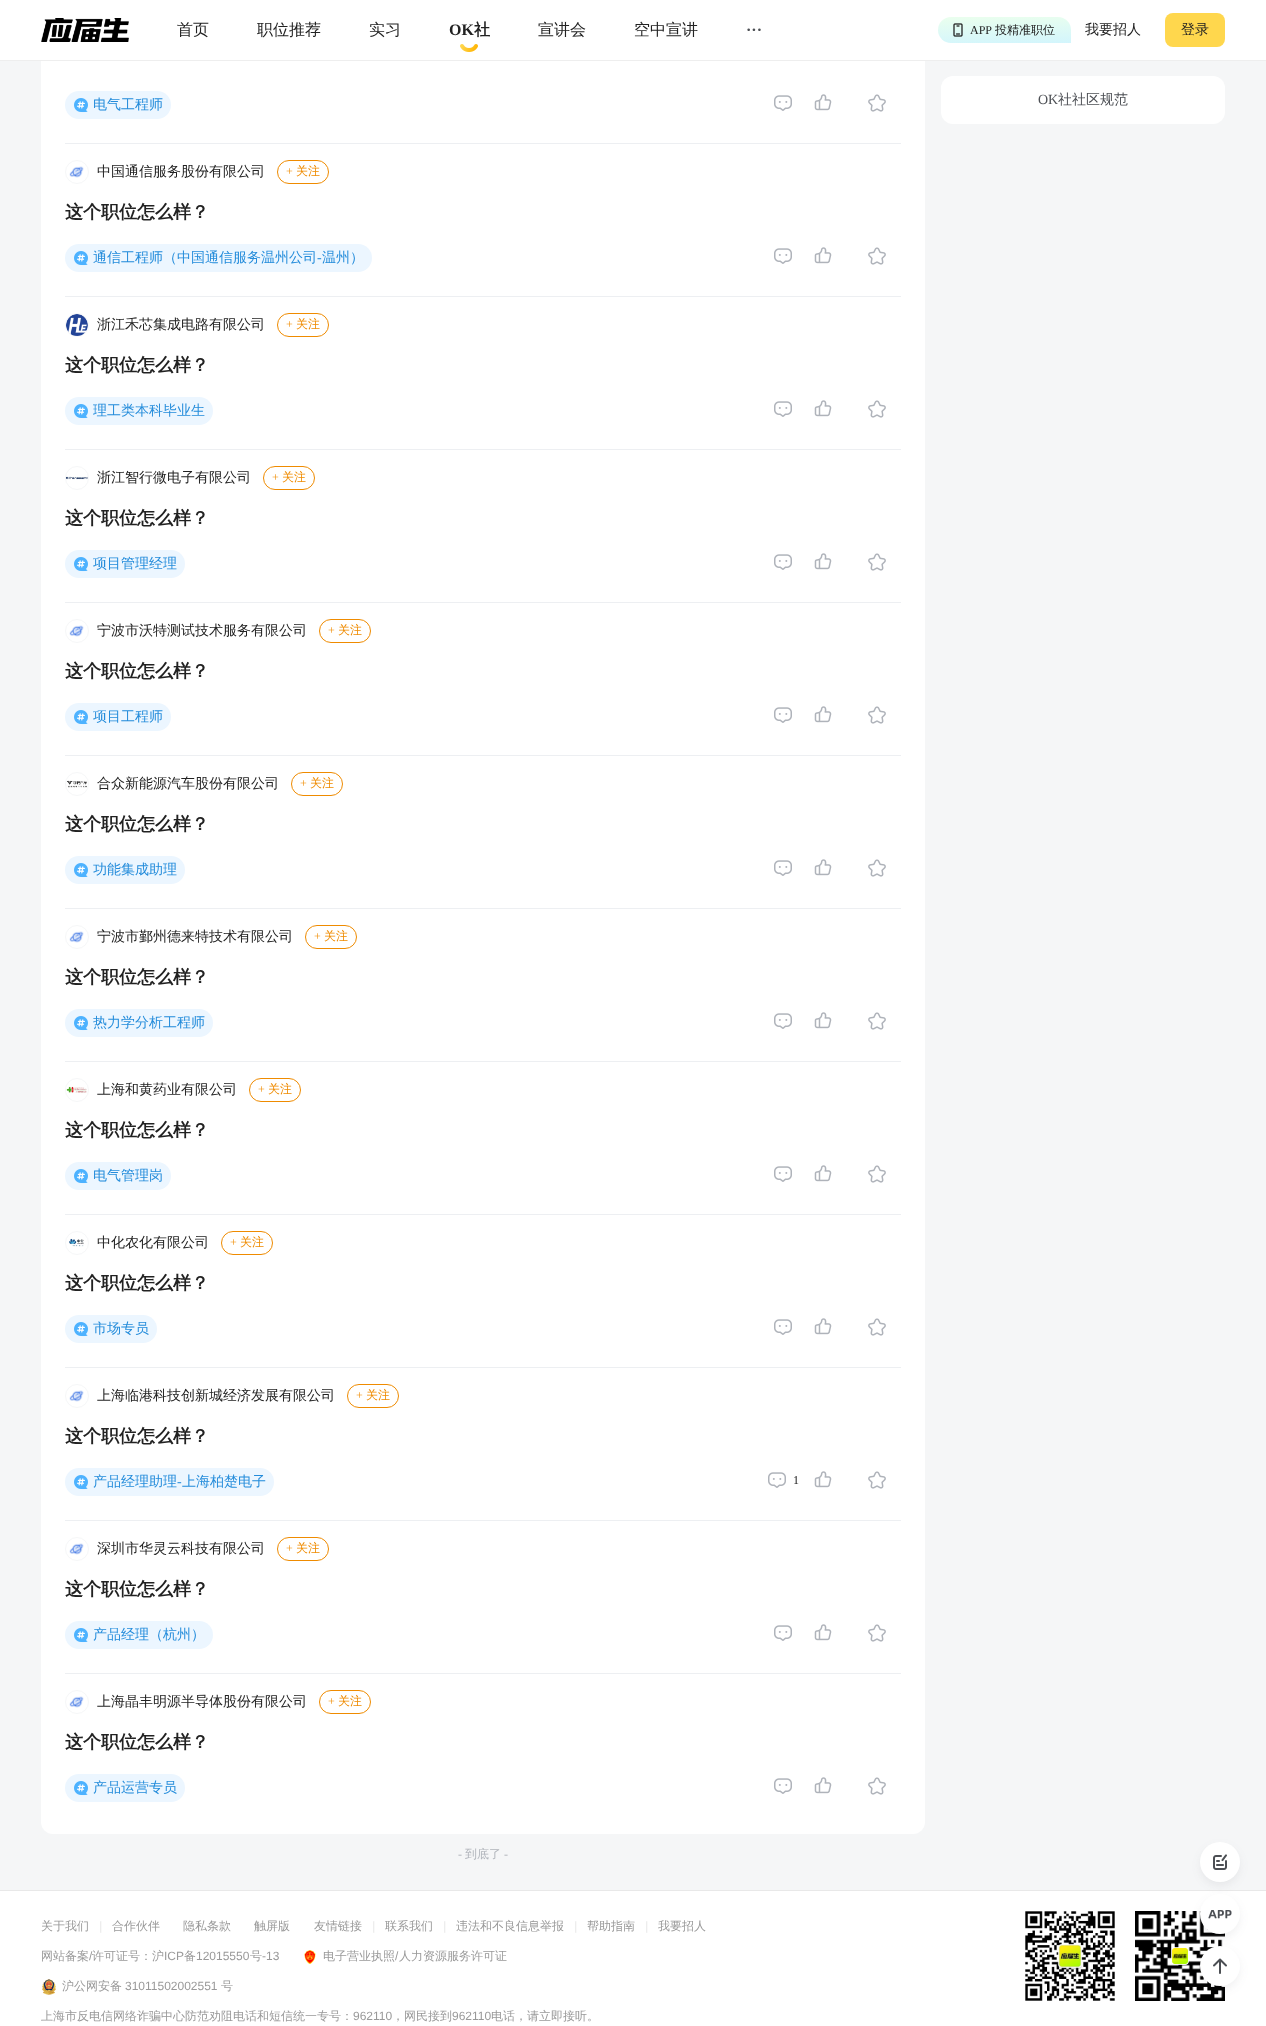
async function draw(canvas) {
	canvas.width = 1266;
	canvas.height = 2026;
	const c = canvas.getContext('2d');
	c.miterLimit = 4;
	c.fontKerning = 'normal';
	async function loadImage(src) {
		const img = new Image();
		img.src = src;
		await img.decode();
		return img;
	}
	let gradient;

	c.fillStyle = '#f5f6f7';
	c.fillRect(0, 0, 1266, 2026);
	c.fillStyle = '#fff';
	c.beginPath();
	c.roundRect(41, -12, 884, 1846, 12);
	c.fill();
	c.fillRect(0, 0, 1266, 60);
	c.fillStyle = '#eee';
	c.fillRect(0, 60, 1266, 1);
	c.drawImage(await loadImage('img1.png'), 41, 18, 88, 24);
	c.font = '500 16px WenQuanYi Zen Hei';
	c.fillStyle = '#222';
	for (const [text, x, y] of [
		['首页', 177, 35],
		['职位推荐', 257, 35],
		['实习', 369, 35],
	]) {
		c.fillText(text, x, y);
	}
	c.font = 'bold 16px Liberation Serif';
	c.fillText('OK', 449, 35);
	c.font = 'bold 16px WenQuanYi Zen Hei';
	c.fillText('社', 474, 35);
	c.drawImage(await loadImage('img2.png'), 460, 44, 18, 8);
	c.font = '500 16px WenQuanYi Zen Hei';
	c.fillText('宣讲会', 538, 35);
	c.fillText('空中宣讲', 634, 35);
	c.font = 'bold 16px Liberation Serif';
	c.fillStyle = '#4c4f54';
	c.fillText('···', 746, 35);
	gradient = c.createLinearGradient(1004, 14, 1005, 46);
	gradient.addColorStop(0, '#ebffed');
	gradient.addColorStop(1, '#d2f5fd');
	gradient.addColorStop(1, '#cff4ff');
	c.fillStyle = gradient;
	c.beginPath();
	c.roundRect(938, 17, 133, 26, [13, 13, 0.5, 13]);
	c.fill();
	c.drawImage(await loadImage('img3.png'), 953, 23, 10, 14);
	c.font = '12px Liberation Serif';
	c.fillStyle = '#222';
	c.fillText('APP', 970, 34);
	c.font = '500 12px WenQuanYi Zen Hei';
	c.fillText('投精准职位', 995, 34);
	c.font = '500 14px WenQuanYi Zen Hei';
	c.fillText('我要招人', 1085, 34);
	c.fillStyle = '#ffd74d';
	c.beginPath();
	c.roundRect(1165, 13, 60, 34, 8);
	c.fill();
	c.fillStyle = '#222';
	c.fillText('登录', 1181, 34);
	c.fillStyle = '#fff';
	c.fillRect(0, 1891, 1266, 135);
	c.fillStyle = '#e8e8e8';
	c.fillRect(0, 1890, 1266, 1);
	c.fillStyle = '#4c4f5414';
	c.filter = 'blur(4px)';
	c.beginPath();
	c.roundRect(1200, 1846, 40, 40, 20);
	c.fill();
	c.filter = 'none';
	c.fillStyle = '#fff';
	c.beginPath();
	c.arc(1220, 1862, 20, 0, 2 * Math.PI);
	c.fill();
	c.drawImage(await loadImage('img4.png'), 1213, 1854, 14, 16);
	c.drawImage(await loadImage('img20.png'), 1135, 1911, 90, 90);
	c.fillStyle = '#4c4f5414';
	c.filter = 'blur(4px)';
	c.beginPath();
	c.roundRect(1200, 1898, 40, 40, 20);
	c.fill();
	c.filter = 'none';
	c.fillStyle = '#fff';
	c.beginPath();
	c.arc(1220, 1914, 20, 0, 2 * Math.PI);
	c.fill();
	c.drawImage(await loadImage('img5.png'), 1208, 1910, 24, 9);
	c.fillStyle = '#4c4f5414';
	c.filter = 'blur(4px)';
	c.beginPath();
	c.roundRect(1200, 1950, 40, 40, 20);
	c.fill();
	c.filter = 'none';
	c.fillStyle = '#fff';
	c.beginPath();
	c.arc(1220, 1966, 20, 0, 2 * Math.PI);
	c.fill();
	c.drawImage(await loadImage('img6.png'), 1213, 1958, 14, 16);
	c.fillStyle = '#edeff2';
	c.fillRect(65, 143, 836, 1);
	c.fillStyle = '#ecf6ff';
	c.beginPath();
	c.roundRect(65, 91, 106, 28, 14);
	c.fill();
	c.drawImage(await loadImage('img7.png'), 74, 98, 14, 15);
	c.fillStyle = '#248cdb';
	c.fillText('电气工程师', 93, 109);
	c.drawImage(await loadImage('img8.png'), 774, 95, 18, 16);
	c.drawImage(await loadImage('img9.png'), 814, 94, 18, 17);
	c.drawImage(await loadImage('img10.png'), 868, 94, 18, 18);
	c.fillStyle = '#edeff2';
	c.fillRect(65, 296, 836, 1);
	c.beginPath();
	c.arc(77, 172, 11.5, 0, 2 * Math.PI);
	c.strokeStyle = '#f6f7f8';
	c.stroke();
	c.drawImage(await loadImage('img11.png'), 69, 166, 15, 12);
	c.fillStyle = '#222';
	c.fillText('中国通信服务股份有限公司', 97, 176);
	c.beginPath();
	c.roundRect(277.5, 160.5, 51, 23, 11.5);
	c.strokeStyle = '#ef8b00';
	c.stroke();
	c.font = '12px Liberation Serif';
	c.fillStyle = '#ef8b00';
	c.fillText('+', 286, 175);
	c.font = '500 12px WenQuanYi Zen Hei';
	c.fillText('关注', 296, 175);
	c.font = 'bold 18px WenQuanYi Zen Hei';
	c.fillStyle = '#222';
	c.fillText('这个职位怎么样？', 65, 218);
	c.fillStyle = '#ecf6ff';
	c.beginPath();
	c.roundRect(65, 244, 307, 28, 14);
	c.fill();
	c.drawImage(await loadImage('img7.png'), 74, 251, 14, 15);
	c.font = '500 14px WenQuanYi Zen Hei';
	c.fillStyle = '#248cdb';
	c.fillText('通信工程师（中国通信服务温州公司', 93, 262);
	c.font = '14px Liberation Serif';
	c.fillText('-', 317, 262);
	c.font = '500 14px WenQuanYi Zen Hei';
	c.fillText('温州）', 322, 262);
	c.drawImage(await loadImage('img8.png'), 774, 248, 18, 16);
	c.drawImage(await loadImage('img9.png'), 814, 247, 18, 17);
	c.drawImage(await loadImage('img10.png'), 868, 247, 18, 18);
	c.fillStyle = '#edeff2';
	c.fillRect(65, 449, 836, 1);
	c.beginPath();
	c.arc(77, 325, 11.5, 0, 2 * Math.PI);
	c.strokeStyle = '#f6f7f8';
	c.stroke();
	c.drawImage(await loadImage('img12.png'), 66, 314, 22, 22);
	c.fillStyle = '#222';
	c.fillText('浙江禾芯集成电路有限公司', 97, 329);
	c.beginPath();
	c.roundRect(277.5, 313.5, 51, 23, 11.5);
	c.strokeStyle = '#ef8b00';
	c.stroke();
	c.font = '12px Liberation Serif';
	c.fillStyle = '#ef8b00';
	c.fillText('+', 286, 328);
	c.font = '500 12px WenQuanYi Zen Hei';
	c.fillText('关注', 296, 328);
	c.font = 'bold 18px WenQuanYi Zen Hei';
	c.fillStyle = '#222';
	c.fillText('这个职位怎么样？', 65, 371);
	c.fillStyle = '#ecf6ff';
	c.beginPath();
	c.roundRect(65, 397, 148, 28, 14);
	c.fill();
	c.drawImage(await loadImage('img7.png'), 74, 404, 14, 15);
	c.font = '500 14px WenQuanYi Zen Hei';
	c.fillStyle = '#248cdb';
	c.fillText('理工类本科毕业生', 93, 415);
	c.drawImage(await loadImage('img8.png'), 774, 401, 18, 16);
	c.drawImage(await loadImage('img9.png'), 814, 400, 18, 17);
	c.drawImage(await loadImage('img10.png'), 868, 400, 18, 18);
	c.fillStyle = '#edeff2';
	c.fillRect(65, 602, 836, 1);
	c.beginPath();
	c.arc(77, 478, 11.5, 0, 2 * Math.PI);
	c.strokeStyle = '#f6f7f8';
	c.stroke();
	c.drawImage(await loadImage('img13.png'), 66, 476, 22, 4);
	c.fillStyle = '#222';
	c.fillText('浙江智行微电子有限公司', 97, 482);
	c.beginPath();
	c.roundRect(263.5, 466.5, 51, 23, 11.5);
	c.strokeStyle = '#ef8b00';
	c.stroke();
	c.font = '12px Liberation Serif';
	c.fillStyle = '#ef8b00';
	c.fillText('+', 272, 481);
	c.font = '500 12px WenQuanYi Zen Hei';
	c.fillText('关注', 282, 481);
	c.font = 'bold 18px WenQuanYi Zen Hei';
	c.fillStyle = '#222';
	c.fillText('这个职位怎么样？', 65, 524);
	c.fillStyle = '#ecf6ff';
	c.beginPath();
	c.roundRect(65, 550, 120, 28, 14);
	c.fill();
	c.drawImage(await loadImage('img7.png'), 74, 557, 14, 15);
	c.font = '500 14px WenQuanYi Zen Hei';
	c.fillStyle = '#248cdb';
	c.fillText('项目管理经理', 93, 568);
	c.drawImage(await loadImage('img8.png'), 774, 554, 18, 16);
	c.drawImage(await loadImage('img9.png'), 814, 553, 18, 17);
	c.drawImage(await loadImage('img10.png'), 868, 553, 18, 18);
	c.fillStyle = '#edeff2';
	c.fillRect(65, 755, 836, 1);
	c.beginPath();
	c.arc(77, 631, 11.5, 0, 2 * Math.PI);
	c.strokeStyle = '#f6f7f8';
	c.stroke();
	c.drawImage(await loadImage('img11.png'), 69, 625, 15, 12);
	c.fillStyle = '#222';
	c.fillText('宁波市沃特测试技术服务有限公司', 97, 635);
	c.beginPath();
	c.roundRect(319.5, 619.5, 51, 23, 11.5);
	c.strokeStyle = '#ef8b00';
	c.stroke();
	c.font = '12px Liberation Serif';
	c.fillStyle = '#ef8b00';
	c.fillText('+', 328, 634);
	c.font = '500 12px WenQuanYi Zen Hei';
	c.fillText('关注', 338, 634);
	c.font = 'bold 18px WenQuanYi Zen Hei';
	c.fillStyle = '#222';
	c.fillText('这个职位怎么样？', 65, 677);
	c.fillStyle = '#ecf6ff';
	c.beginPath();
	c.roundRect(65, 703, 106, 28, 14);
	c.fill();
	c.drawImage(await loadImage('img7.png'), 74, 710, 14, 15);
	c.font = '500 14px WenQuanYi Zen Hei';
	c.fillStyle = '#248cdb';
	c.fillText('项目工程师', 93, 721);
	c.drawImage(await loadImage('img8.png'), 774, 707, 18, 16);
	c.drawImage(await loadImage('img9.png'), 814, 706, 18, 17);
	c.drawImage(await loadImage('img10.png'), 868, 706, 18, 18);
	c.fillStyle = '#edeff2';
	c.fillRect(65, 908, 836, 1);
	c.beginPath();
	c.arc(77, 784, 11.5, 0, 2 * Math.PI);
	c.strokeStyle = '#f6f7f8';
	c.stroke();
	c.drawImage(await loadImage('img14.png'), 67, 780, 20, 8);
	c.fillStyle = '#222';
	c.fillText('合众新能源汽车股份有限公司', 97, 788);
	c.beginPath();
	c.roundRect(291.5, 772.5, 51, 23, 11.5);
	c.strokeStyle = '#ef8b00';
	c.stroke();
	c.font = '12px Liberation Serif';
	c.fillStyle = '#ef8b00';
	c.fillText('+', 300, 787);
	c.font = '500 12px WenQuanYi Zen Hei';
	c.fillText('关注', 310, 787);
	c.font = 'bold 18px WenQuanYi Zen Hei';
	c.fillStyle = '#222';
	c.fillText('这个职位怎么样？', 65, 830);
	c.fillStyle = '#ecf6ff';
	c.beginPath();
	c.roundRect(65, 856, 120, 28, 14);
	c.fill();
	c.drawImage(await loadImage('img7.png'), 74, 863, 14, 15);
	c.font = '500 14px WenQuanYi Zen Hei';
	c.fillStyle = '#248cdb';
	c.fillText('功能集成助理', 93, 874);
	c.drawImage(await loadImage('img8.png'), 774, 860, 18, 16);
	c.drawImage(await loadImage('img9.png'), 814, 859, 18, 17);
	c.drawImage(await loadImage('img10.png'), 868, 859, 18, 18);
	c.fillStyle = '#edeff2';
	c.fillRect(65, 1061, 836, 1);
	c.beginPath();
	c.arc(77, 937, 11.5, 0, 2 * Math.PI);
	c.strokeStyle = '#f6f7f8';
	c.stroke();
	c.drawImage(await loadImage('img11.png'), 69, 931, 15, 12);
	c.fillStyle = '#222';
	c.fillText('宁波市鄞州德来特技术有限公司', 97, 941);
	c.beginPath();
	c.roundRect(305.5, 925.5, 51, 23, 11.5);
	c.strokeStyle = '#ef8b00';
	c.stroke();
	c.font = '12px Liberation Serif';
	c.fillStyle = '#ef8b00';
	c.fillText('+', 314, 940);
	c.font = '500 12px WenQuanYi Zen Hei';
	c.fillText('关注', 324, 940);
	c.font = 'bold 18px WenQuanYi Zen Hei';
	c.fillStyle = '#222';
	c.fillText('这个职位怎么样？', 65, 983);
	c.fillStyle = '#ecf6ff';
	c.beginPath();
	c.roundRect(65, 1009, 148, 28, 14);
	c.fill();
	c.drawImage(await loadImage('img7.png'), 74, 1016, 14, 15);
	c.font = '500 14px WenQuanYi Zen Hei';
	c.fillStyle = '#248cdb';
	c.fillText('热力学分析工程师', 93, 1027);
	c.drawImage(await loadImage('img8.png'), 774, 1013, 18, 16);
	c.drawImage(await loadImage('img9.png'), 814, 1012, 18, 17);
	c.drawImage(await loadImage('img10.png'), 868, 1012, 18, 18);
	c.fillStyle = '#edeff2';
	c.fillRect(65, 1214, 836, 1);
	c.beginPath();
	c.arc(77, 1090, 11.5, 0, 2 * Math.PI);
	c.strokeStyle = '#f6f7f8';
	c.stroke();
	c.drawImage(await loadImage('img15.png'), 66, 1086, 21, 7);
	c.fillStyle = '#222';
	c.fillText('上海和黄药业有限公司', 97, 1094);
	c.beginPath();
	c.roundRect(249.5, 1078.5, 51, 23, 11.5);
	c.strokeStyle = '#ef8b00';
	c.stroke();
	c.font = '12px Liberation Serif';
	c.fillStyle = '#ef8b00';
	c.fillText('+', 258, 1093);
	c.font = '500 12px WenQuanYi Zen Hei';
	c.fillText('关注', 268, 1093);
	c.font = 'bold 18px WenQuanYi Zen Hei';
	c.fillStyle = '#222';
	c.fillText('这个职位怎么样？', 65, 1136);
	c.fillStyle = '#ecf6ff';
	c.beginPath();
	c.roundRect(65, 1162, 106, 28, 14);
	c.fill();
	c.drawImage(await loadImage('img7.png'), 74, 1169, 14, 15);
	c.font = '500 14px WenQuanYi Zen Hei';
	c.fillStyle = '#248cdb';
	c.fillText('电气管理岗', 93, 1180);
	c.drawImage(await loadImage('img8.png'), 774, 1166, 18, 16);
	c.drawImage(await loadImage('img9.png'), 814, 1165, 18, 17);
	c.drawImage(await loadImage('img10.png'), 868, 1165, 18, 18);
	c.fillStyle = '#edeff2';
	c.fillRect(65, 1367, 836, 1);
	c.beginPath();
	c.arc(77, 1243, 11.5, 0, 2 * Math.PI);
	c.strokeStyle = '#f6f7f8';
	c.stroke();
	c.drawImage(await loadImage('img16.png'), 69, 1238, 15, 9);
	c.fillStyle = '#222';
	c.fillText('中化农化有限公司', 97, 1247);
	c.beginPath();
	c.roundRect(221.5, 1231.5, 51, 23, 11.5);
	c.strokeStyle = '#ef8b00';
	c.stroke();
	c.font = '12px Liberation Serif';
	c.fillStyle = '#ef8b00';
	c.fillText('+', 230, 1246);
	c.font = '500 12px WenQuanYi Zen Hei';
	c.fillText('关注', 240, 1246);
	c.font = 'bold 18px WenQuanYi Zen Hei';
	c.fillStyle = '#222';
	c.fillText('这个职位怎么样？', 65, 1289);
	c.fillStyle = '#ecf6ff';
	c.beginPath();
	c.roundRect(65, 1315, 92, 28, 14);
	c.fill();
	c.drawImage(await loadImage('img7.png'), 74, 1322, 14, 15);
	c.font = '500 14px WenQuanYi Zen Hei';
	c.fillStyle = '#248cdb';
	c.fillText('市场专员', 93, 1333);
	c.drawImage(await loadImage('img8.png'), 774, 1319, 18, 16);
	c.drawImage(await loadImage('img9.png'), 814, 1318, 18, 17);
	c.drawImage(await loadImage('img10.png'), 868, 1318, 18, 18);
	c.fillStyle = '#edeff2';
	c.fillRect(65, 1520, 836, 1);
	c.beginPath();
	c.arc(77, 1396, 11.5, 0, 2 * Math.PI);
	c.strokeStyle = '#f6f7f8';
	c.stroke();
	c.drawImage(await loadImage('img11.png'), 69, 1390, 15, 12);
	c.fillStyle = '#222';
	c.fillText('上海临港科技创新城经济发展有限公司', 97, 1400);
	c.beginPath();
	c.roundRect(347.5, 1384.5, 51, 23, 11.5);
	c.strokeStyle = '#ef8b00';
	c.stroke();
	c.font = '12px Liberation Serif';
	c.fillStyle = '#ef8b00';
	c.fillText('+', 356, 1399);
	c.font = '500 12px WenQuanYi Zen Hei';
	c.fillText('关注', 366, 1399);
	c.font = 'bold 18px WenQuanYi Zen Hei';
	c.fillStyle = '#222';
	c.fillText('这个职位怎么样？', 65, 1442);
	c.fillStyle = '#ecf6ff';
	c.beginPath();
	c.roundRect(65, 1468, 209, 28, 14);
	c.fill();
	c.drawImage(await loadImage('img7.png'), 74, 1475, 14, 15);
	c.font = '500 14px WenQuanYi Zen Hei';
	c.fillStyle = '#248cdb';
	c.fillText('产品经理助理', 93, 1486);
	c.font = '14px Liberation Serif';
	c.fillText('-', 177, 1486);
	c.font = '500 14px WenQuanYi Zen Hei';
	c.fillText('上海柏楚电子', 182, 1486);
	c.drawImage(await loadImage('img8.png'), 768, 1472, 18, 16);
	c.font = '12px Liberation Serif';
	c.fillStyle = '#222';
	c.fillText('1', 793, 1484);
	c.drawImage(await loadImage('img9.png'), 814, 1471, 18, 17);
	c.drawImage(await loadImage('img10.png'), 868, 1471, 18, 18);
	c.fillStyle = '#edeff2';
	c.fillRect(65, 1673, 836, 1);
	c.beginPath();
	c.arc(77, 1549, 11.5, 0, 2 * Math.PI);
	c.strokeStyle = '#f6f7f8';
	c.stroke();
	c.drawImage(await loadImage('img11.png'), 69, 1543, 15, 12);
	c.font = '500 14px WenQuanYi Zen Hei';
	c.fillStyle = '#222';
	c.fillText('深圳市华灵云科技有限公司', 97, 1553);
	c.beginPath();
	c.roundRect(277.5, 1537.5, 51, 23, 11.5);
	c.strokeStyle = '#ef8b00';
	c.stroke();
	c.font = '12px Liberation Serif';
	c.fillStyle = '#ef8b00';
	c.fillText('+', 286, 1552);
	c.font = '500 12px WenQuanYi Zen Hei';
	c.fillText('关注', 296, 1552);
	c.font = 'bold 18px WenQuanYi Zen Hei';
	c.fillStyle = '#222';
	c.fillText('这个职位怎么样？', 65, 1595);
	c.fillStyle = '#ecf6ff';
	c.beginPath();
	c.roundRect(65, 1621, 148, 28, 14);
	c.fill();
	c.drawImage(await loadImage('img7.png'), 74, 1628, 14, 15);
	c.font = '500 14px WenQuanYi Zen Hei';
	c.fillStyle = '#248cdb';
	c.fillText('产品经理（杭州）', 93, 1639);
	c.drawImage(await loadImage('img8.png'), 774, 1625, 18, 16);
	c.drawImage(await loadImage('img9.png'), 814, 1624, 18, 17);
	c.drawImage(await loadImage('img10.png'), 868, 1624, 18, 18);
	c.beginPath();
	c.arc(77, 1702, 11.5, 0, 2 * Math.PI);
	c.strokeStyle = '#f6f7f8';
	c.stroke();
	c.drawImage(await loadImage('img11.png'), 69, 1696, 15, 12);
	c.fillStyle = '#222';
	c.fillText('上海晶丰明源半导体股份有限公司', 97, 1706);
	c.beginPath();
	c.roundRect(319.5, 1690.5, 51, 23, 11.5);
	c.strokeStyle = '#ef8b00';
	c.stroke();
	c.font = '12px Liberation Serif';
	c.fillStyle = '#ef8b00';
	c.fillText('+', 328, 1705);
	c.font = '500 12px WenQuanYi Zen Hei';
	c.fillText('关注', 338, 1705);
	c.font = 'bold 18px WenQuanYi Zen Hei';
	c.fillStyle = '#222';
	c.fillText('这个职位怎么样？', 65, 1748);
	c.fillStyle = '#ecf6ff';
	c.beginPath();
	c.roundRect(65, 1774, 120, 28, 14);
	c.fill();
	c.drawImage(await loadImage('img7.png'), 74, 1781, 14, 15);
	c.font = '500 14px WenQuanYi Zen Hei';
	c.fillStyle = '#248cdb';
	c.fillText('产品运营专员', 93, 1792);
	c.drawImage(await loadImage('img8.png'), 774, 1778, 18, 16);
	c.drawImage(await loadImage('img9.png'), 814, 1777, 18, 17);
	c.drawImage(await loadImage('img10.png'), 868, 1777, 18, 18);
	c.fillStyle = '#fff';
	c.beginPath();
	c.roundRect(941, 76, 284, 48, 12);
	c.fill();
	c.font = '14px Liberation Serif';
	c.fillStyle = '#4c4f54';
	c.fillText('OK', 1038, 104);
	c.font = '500 14px WenQuanYi Zen Hei';
	c.fillText('社社区规范', 1058, 104);
	c.font = '12px Liberation Serif';
	c.fillStyle = '#afb3ba';
	c.fillText('-', 458, 1858);
	c.font = '500 12px WenQuanYi Zen Hei';
	c.fillText('到底了', 465, 1858);
	c.font = '12px Liberation Serif';
	c.fillText('-', 504, 1858);
	c.font = '500 12px WenQuanYi Zen Hei';
	c.fillStyle = '#999';
	c.fillText('关于我们', 41, 1930);
	c.font = 'italic 12px Liberation Sans';
	c.fillStyle = '#e8e8e8';
	c.fillText('|', 99, 1930);
	c.font = '500 12px WenQuanYi Zen Hei';
	c.fillStyle = '#999';
	for (const [text, x, y] of [
		['合作伙伴', 112, 1930],
		['隐私条款', 183, 1930],
		['触屏版', 254, 1930],
		['友情链接', 314, 1930],
	]) {
		c.fillText(text, x, y);
	}
	c.font = 'italic 12px Liberation Sans';
	c.fillStyle = '#e8e8e8';
	c.fillText('|', 372, 1930);
	c.font = '500 12px WenQuanYi Zen Hei';
	c.fillStyle = '#999';
	c.fillText('联系我们', 385, 1930);
	c.font = 'italic 12px Liberation Sans';
	c.fillStyle = '#e8e8e8';
	c.fillText('|', 443, 1930);
	c.font = '500 12px WenQuanYi Zen Hei';
	c.fillStyle = '#999';
	c.fillText('违法和不良信息举报', 456, 1930);
	c.font = 'italic 12px Liberation Sans';
	c.fillStyle = '#e8e8e8';
	c.fillText('|', 574, 1930);
	c.font = '500 12px WenQuanYi Zen Hei';
	c.fillStyle = '#999';
	c.fillText('帮助指南', 587, 1930);
	c.font = 'italic 12px Liberation Sans';
	c.fillStyle = '#e8e8e8';
	c.fillText('|', 645, 1930);
	c.font = '500 12px WenQuanYi Zen Hei';
	c.fillStyle = '#999';
	c.fillText('我要招人', 658, 1930);
	c.fillText('网站备案', 41, 1960);
	c.font = '12px Liberation Sans';
	c.fillText('/', 89, 1960);
	c.font = '500 12px WenQuanYi Zen Hei';
	c.fillText('许可证号：沪', 92, 1960);
	c.font = '12px Liberation Sans';
	c.fillText('ICP', 164, 1960);
	c.font = '500 12px WenQuanYi Zen Hei';
	c.fillText('备', 184, 1960);
	c.font = '12px Liberation Sans';
	c.fillText('12015550', 196, 1960);
	c.font = '500 12px WenQuanYi Zen Hei';
	c.fillText('号', 250, 1960);
	c.font = '12px Liberation Sans';
	c.fillText('-13', 262, 1960);
	c.drawImage(await loadImage('img17.png'), 304, 1950, 12, 14);
	c.font = '500 12px WenQuanYi Zen Hei';
	c.fillText('电子营业执照', 323, 1960);
	c.font = '12px Liberation Sans';
	c.fillText('/', 395, 1960);
	c.font = '500 12px WenQuanYi Zen Hei';
	c.fillText('人力资源服务许可证', 399, 1960);
	c.drawImage(await loadImage('img18.png'), 42, 1979, 14, 16);
	c.fillText('沪公网安备', 62, 1990);
	c.font = '12px Liberation Sans';
	c.fillText('31011502002551', 125, 1990);
	c.font = '500 12px WenQuanYi Zen Hei';
	c.fillText('号', 221, 1990);
	c.fillText('上海市反电信网络诈骗中心防范劝阻电话和短信统一专号：', 41, 2020);
	c.font = '12px Liberation Sans';
	c.fillText('962110', 353, 2020);
	c.font = '500 12px WenQuanYi Zen Hei';
	c.fillText('，网民接到', 392, 2020);
	c.font = '12px Liberation Sans';
	c.fillText('962110', 452, 2020);
	c.font = '500 12px WenQuanYi Zen Hei';
	c.fillText('电话，请立即接听。', 491, 2020);
	c.drawImage(await loadImage('img19.png'), 1025, 1911, 90, 90);
}

draw(document.querySelector('canvas'));
